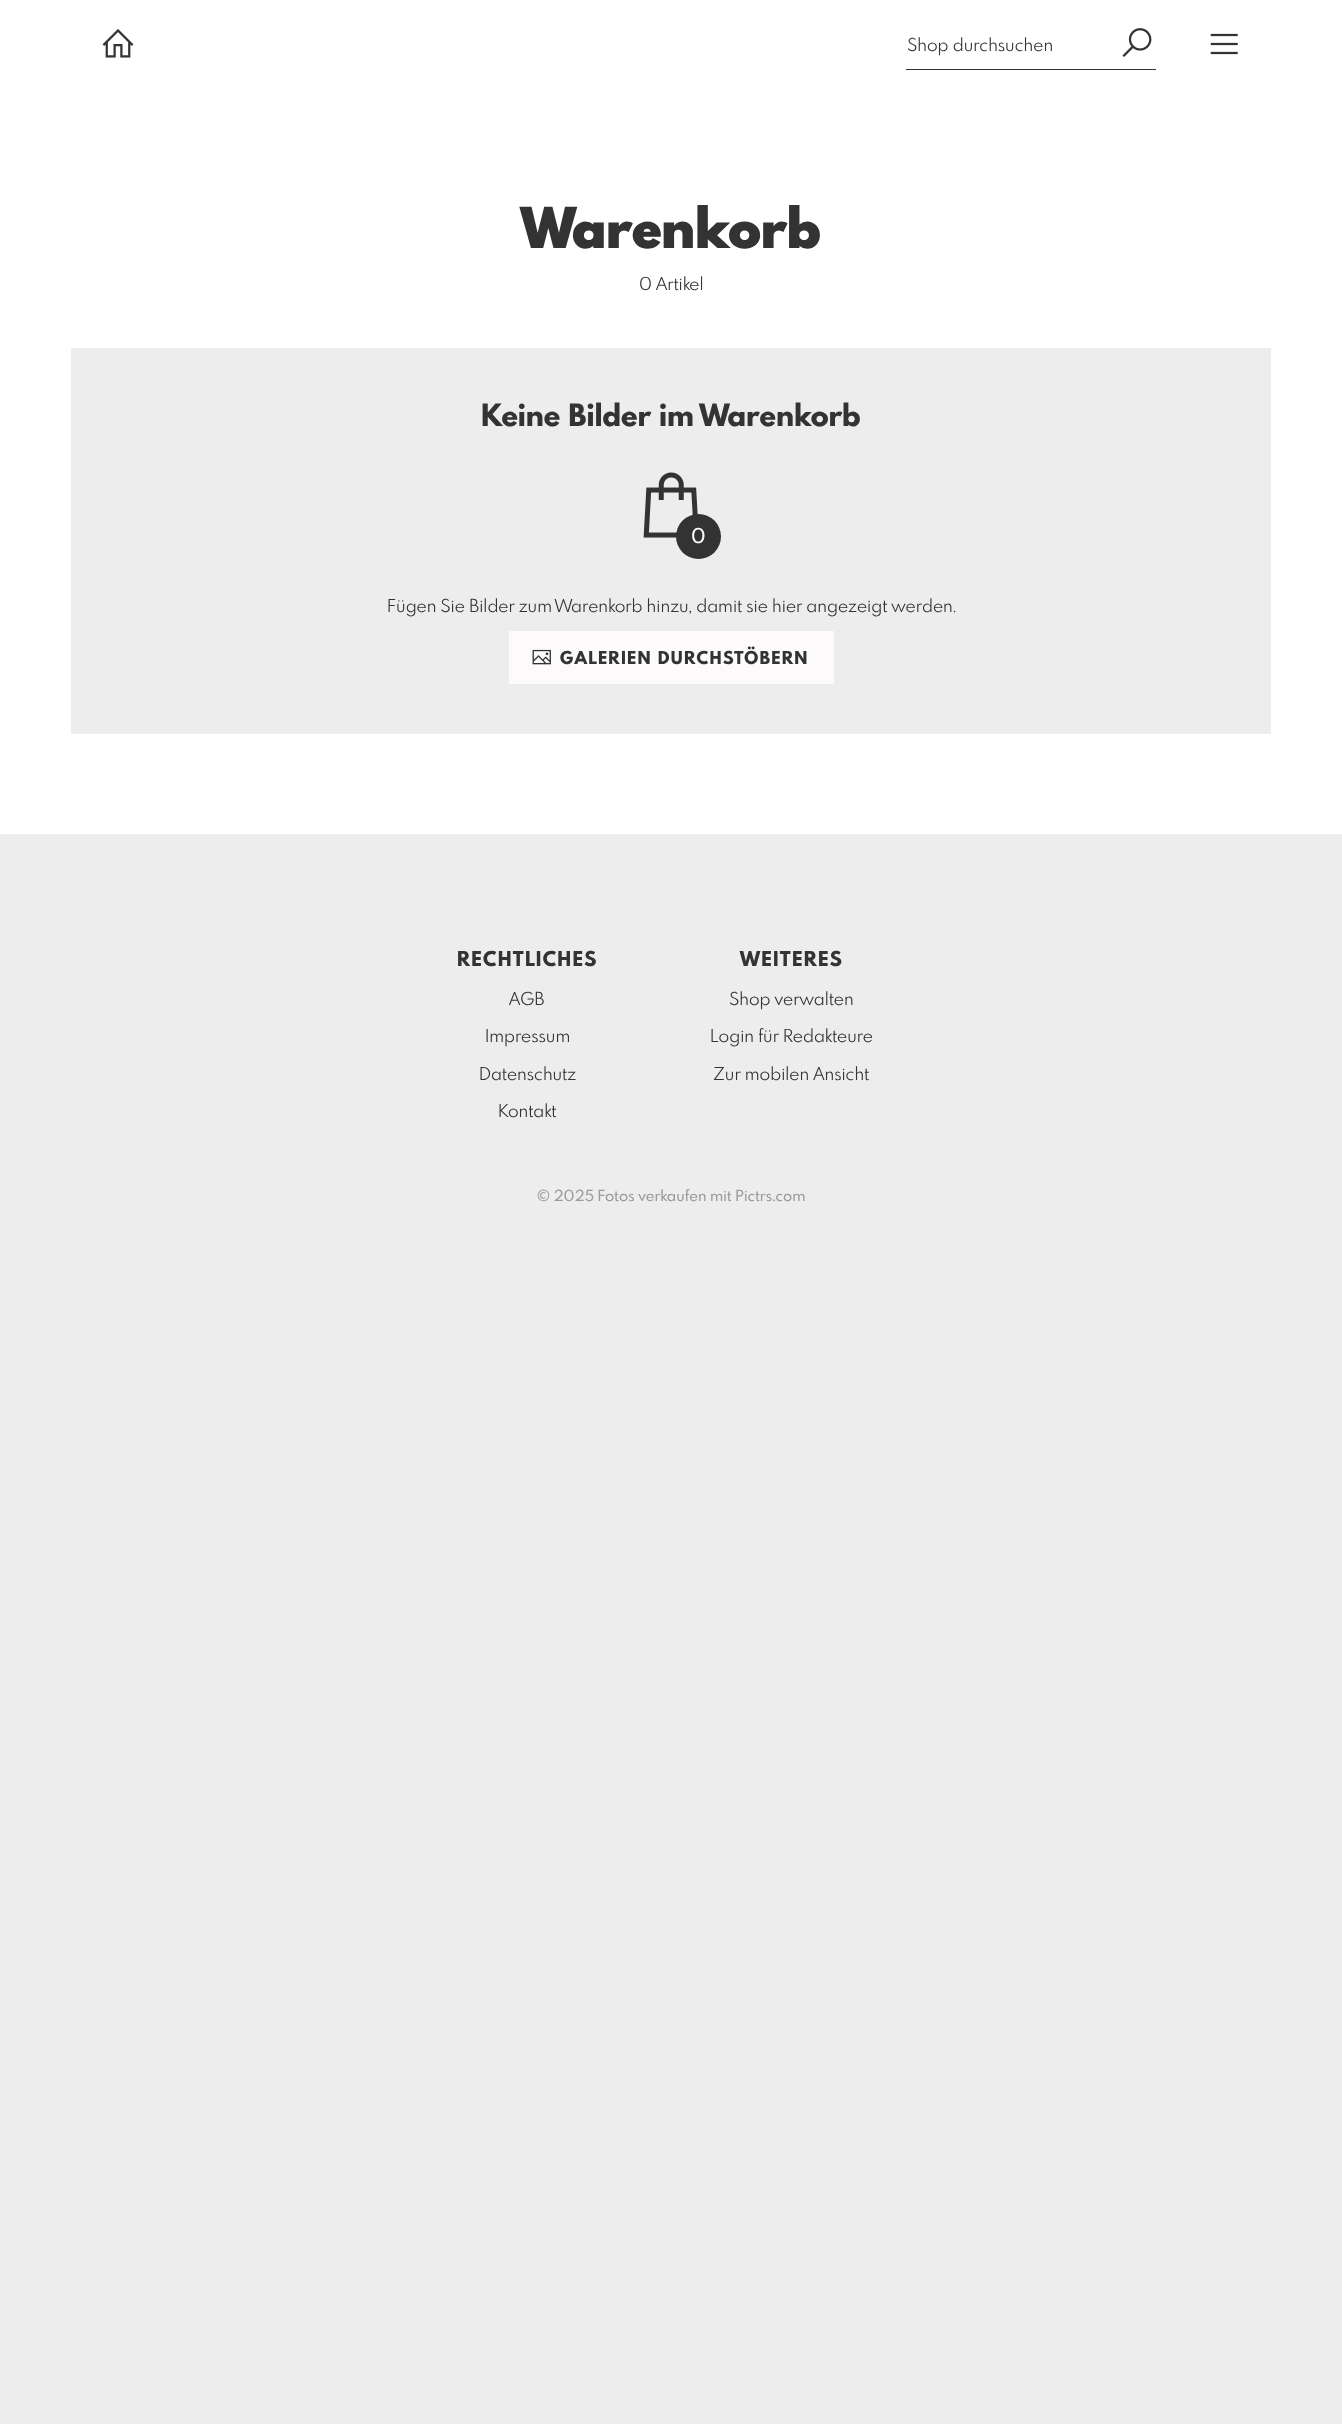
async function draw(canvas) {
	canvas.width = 1342;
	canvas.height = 2424;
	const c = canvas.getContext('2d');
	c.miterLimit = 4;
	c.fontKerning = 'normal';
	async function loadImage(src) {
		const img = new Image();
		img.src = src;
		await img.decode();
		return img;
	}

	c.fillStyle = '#ededed';
	c.fillRect(0, 0, 1342, 2424);
	c.fillStyle = '#fff';
	c.fillRect(0, 0, 1342, 834);
	c.drawImage(await loadImage('img1.png'), 102, 29, 32, 29);
	c.fillStyle = '#333';
	c.fillRect(906, 69, 250, 1);
	c.font = '17.5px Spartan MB';
	c.fillText('Shop durchsuchen', 907, 51);
	c.drawImage(await loadImage('img2.png'), 1122, 28, 30, 29);
	c.drawImage(await loadImage('img3.png'), 1210, 33, 28, 22);
	c.font = '900 55px Spartan MB';
	c.fillText('Warenkorb', 521, 248);
	c.font = '17.5px Spartan MB';
	c.fillText('0 Artikel', 639, 290);
	c.fillStyle = '#ededed';
	c.fillRect(71, 348, 1200, 386);
	c.font = '800 30px Spartan MB';
	c.fillStyle = '#333';
	c.fillText('Keine Bilder im Warenkorb', 481, 426);
	c.drawImage(await loadImage('img4.png'), 643, 472, 55, 66);
	c.beginPath();
	c.arc(698.5, 536.5, 22.5, 0, 2 * Math.PI);
	c.fill();
	c.font = '500 20px Spartan MB';
	c.fillStyle = '#fff';
	c.fillText('0', 691, 543);
	c.font = '17.5px Spartan MB';
	c.fillStyle = '#333';
	c.fillText('Fügen Sie Bilder zum Warenkorb hinzu, damit sie hier angezeigt werden.', 387, 612);
	c.fillStyle = '#fcfafa';
	c.fillRect(509, 631, 325, 53);
	c.drawImage(await loadImage('img5.png'), 532, 649, 19, 16);
	c.letterSpacing = '1.25px';
	c.font = '800 17.5px Spartan MB';
	c.fillStyle = '#333';
	c.fillText('GALERIEN DURCHSTÖBERN', 560, 664);
	c.font = '800 20px Spartan MB';
	c.fillText('RECHTLICHES', 457, 966);
	c.letterSpacing = '0px';
	c.font = '17.5px Spartan MB';
	for (const [text, x, y] of [
		['AGB', 509, 1005],
		['Impressum', 485, 1042],
		['Datenschutz', 479, 1080],
		['Kontakt', 498, 1117],
	]) {
		c.fillText(text, x, y);
	}
	c.letterSpacing = '1.25px';
	c.font = '800 20px Spartan MB';
	c.fillText('WEITERES', 740, 966);
	c.letterSpacing = '0px';
	c.font = '17.5px Spartan MB';
	for (const [text, x, y] of [
		['Shop verwalten', 729, 1005],
		['Login für Redakteure', 710, 1042],
		['Zur mobilen Ansicht', 713, 1080],
	]) {
		c.fillText(text, x, y);
	}
	c.font = '500 15px Spartan MB';
	c.fillStyle = '#9b9b9b';
	c.fillText('© 2025 Fotos verkaufen mit Pictrs.com', 537, 1201);
}

draw(document.querySelector('canvas'));
